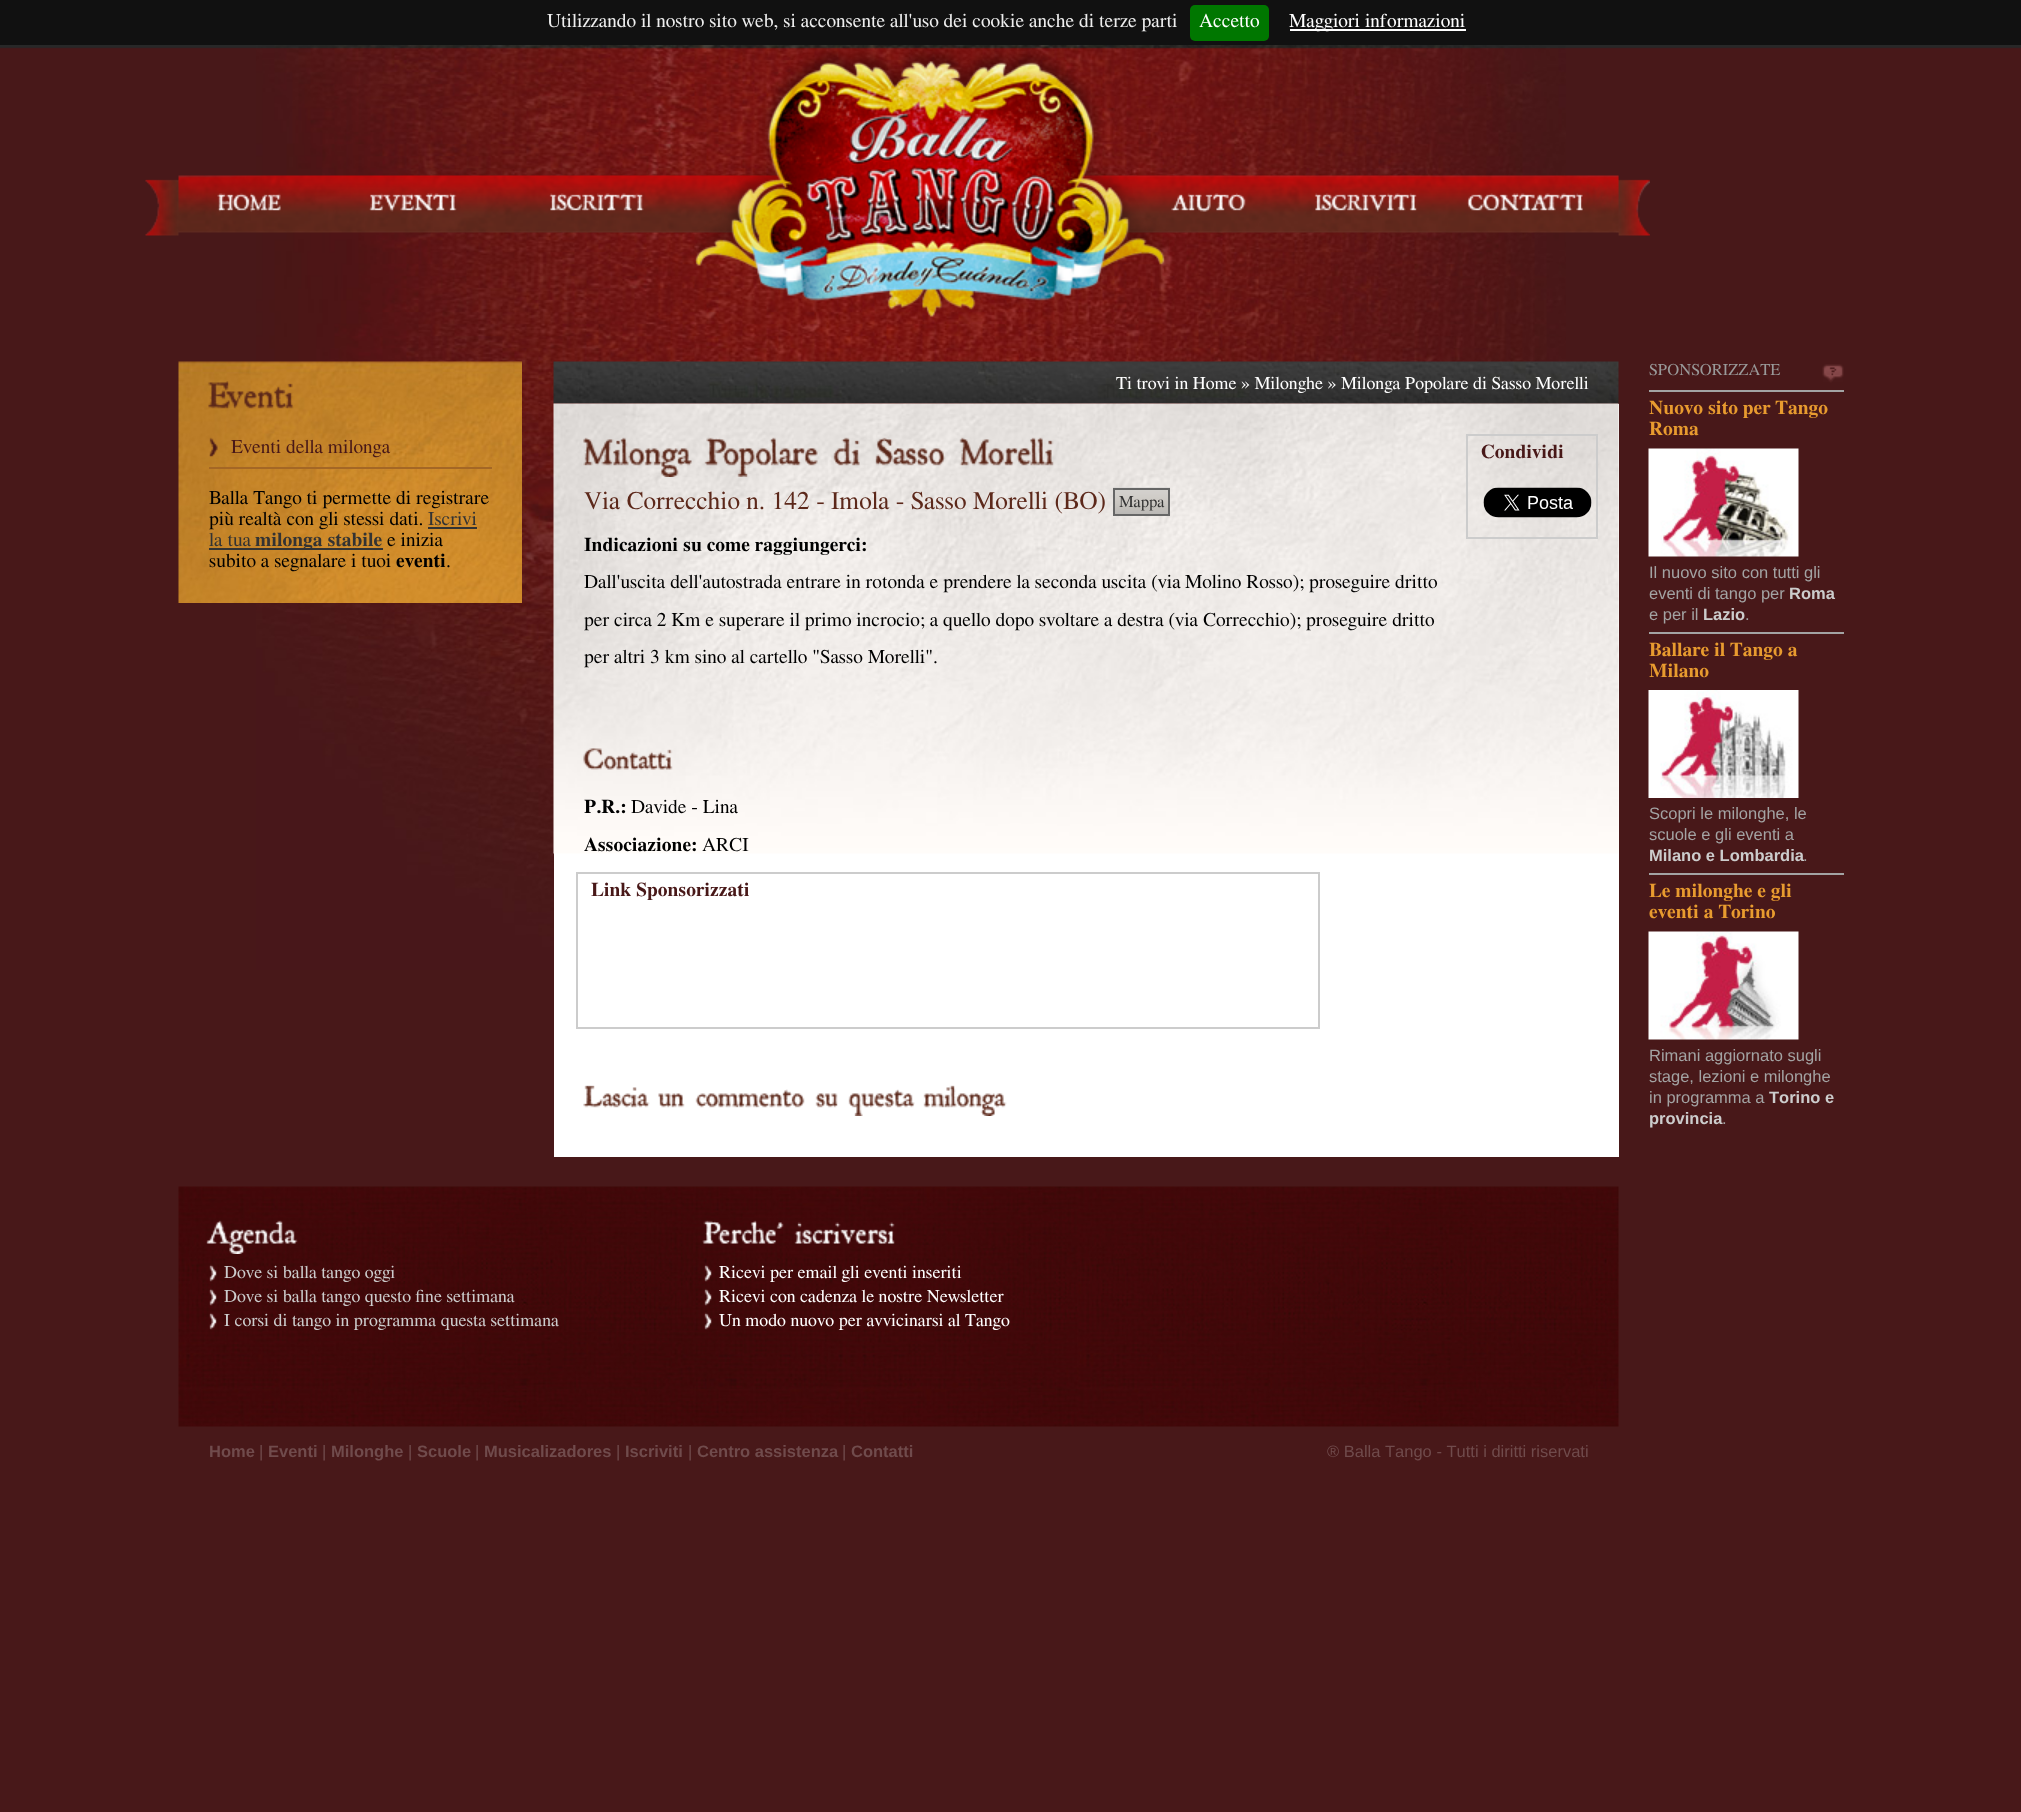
async function draw(canvas) {
	canvas.width = 2021;
	canvas.height = 1812;
	const c = canvas.getContext('2d');
	c.miterLimit = 4;
	c.fontKerning = 'none';
	async function loadImage(src) {
		const img = new Image();
		img.src = src;
		await img.decode();
		return img;
	}

	c.fillStyle = '#481819';
	c.fillRect(0, 0, 2021, 1812);
	c.drawImage(await loadImage('img1.png'), 0, 45, 2021, 4);
	c.fillStyle = '#111';
	c.fillRect(0, 0, 2021, 45);
	c.font = '19.5px FreeSerif';
	c.fillStyle = '#eee';
	c.fillText('Utilizzando il nostro sito web, si acconsente', 547, 27);
	c.fillText('all\'uso dei cookie anche di terze parti', 890, 27);
	c.fillStyle = '#070';
	c.beginPath();
	c.roundRect(1190, 5, 79, 36, 5);
	c.fill();
	c.fillStyle = '#fff';
	c.fillText('Accetto', 1199, 27);
	c.fillRect(1290, 29, 176, 2);
	c.fillText('Maggiori informazioni', 1289, 27);
	c.drawImage(await loadImage('img2.png'), 256, 45, 1310, 925);
	c.drawImage(await loadImage('img3.png'), 145, 175, 1505, 61);
	c.drawImage(await loadImage('img4.png'), 690, 48, 479, 269);
	c.drawImage(await loadImage('img5.png'), 217, 193, 64, 19);
	c.drawImage(await loadImage('img6.png'), 369, 193, 88, 19);
	c.drawImage(await loadImage('img7.png'), 549, 193, 95, 18);
	c.drawImage(await loadImage('img8.png'), 1171, 193, 75, 19);
	c.drawImage(await loadImage('img9.png'), 1314, 193, 103, 19);
	c.drawImage(await loadImage('img10.png'), 1467, 193, 116, 18);
	c.drawImage(await loadImage('img11.png'), 178, 361, 344, 242);
	c.drawImage(await loadImage('img12.png'), 208, 381, 86, 28);
	c.drawImage(await loadImage('img13.png'), 209, 437, 9, 20);
	c.fillStyle = '#a46725';
	c.fillRect(209, 467, 283, 2);
	c.fillStyle = '#481818';
	c.fillText('Eventi della milonga', 231, 453);
	c.fillStyle = '#000';
	c.fillText('Balla Tango ti permette di registrare', 209, 504);
	c.fillText('più realtà con gli stessi dati.', 209, 525);
	c.fillStyle = '#333';
	c.fillText('Iscrivi', 428, 525);
	c.fillRect(428, 527, 49, 2);
	c.fillText('la tua', 209, 546);
	c.fillRect(209, 548, 174, 2);
	c.font = 'bold 19.5px FreeSerif';
	c.fillText('milonga stabile', 255, 546);
	c.font = '19.5px FreeSerif';
	c.fillStyle = '#000';
	c.fillText('e inizia', 387, 546);
	c.fillText('subito a segnalare i tuoi', 209, 567);
	c.font = 'bold 19.5px FreeSerif';
	c.fillText('eventi', 396, 567);
	c.font = '19.5px FreeSerif';
	c.fillText('.', 446, 567);
	c.drawImage(await loadImage('img14.png'), 553, 361, 1066, 43);
	c.font = '18px FreeSerif';
	c.fillStyle = '#fff';
	c.fillText('Ti trovi in Home » Milonghe » Milonga Popolare di Sasso Morelli', 1116, 389);
	c.fillRect(554, 404, 1065, 753);
	c.drawImage(await loadImage('img15.png'), 553, 403, 1066, 451);
	c.strokeStyle = '#ccc';
	c.lineWidth = 2;
	c.strokeRect(1467, 435, 130, 103);
	c.font = 'bold 19.5px FreeSerif';
	c.fillStyle = '#481818';
	c.fillText('Condividi', 1481, 458);
	c.drawImage(await loadImage('img16.png'), 1483, 487, 109, 31);
	c.drawImage(await loadImage('img17.png'), 583, 437, 109, 40);
	c.drawImage(await loadImage('img18.png'), 704, 437, 114, 40);
	c.drawImage(await loadImage('img19.png'), 833, 437, 27, 29);
	c.drawImage(await loadImage('img20.png'), 875, 437, 71, 29);
	c.drawImage(await loadImage('img21.png'), 959, 437, 95, 29);
	c.font = '25.5px FreeSerif';
	c.fillStyle = '#5c281a';
	c.fillText('Via Correcchio n. 142 - Imola - Sasso Morelli (BO)', 584, 509);
	c.drawImage(await loadImage('img22.png'), 1113, 487, 57, 27);
	c.strokeStyle = '#666';
	c.strokeRect(1114, 489, 55, 26);
	c.font = '16.5px FreeSerif';
	c.fillStyle = '#333';
	c.fillText('Mappa', 1119, 507);
	c.font = 'bold 19.5px FreeSerif';
	c.fillStyle = '#000';
	c.fillText('Indicazioni su come raggiungerci:', 584, 551);
	c.font = '19.5px FreeSerif';
	for (const [text, x, y] of [
		['Dall\'uscita dell\'autostrada entrare in rotonda e prendere la seconda uscita (via', 584, 588],
		['Molino Rosso); proseguire dritto', 1185, 588],
		['per circa 2 Km e superare il primo incrocio; a quello dopo svoltare', 584, 626],
		['a destra (via Correcchio); proseguire dritto', 1104, 626],
		['per altri 3 km sino al cartello "Sasso Morelli".', 584, 663],
	]) {
		c.fillText(text, x, y);
	}
	c.drawImage(await loadImage('img23.png'), 583, 748, 90, 22);
	c.font = 'bold 19.5px FreeSerif';
	c.fillText('P.R.:', 584, 813);
	c.font = '19.5px FreeSerif';
	c.fillText('Davide - Lina', 631, 813);
	c.font = 'bold 19.5px FreeSerif';
	c.fillText('Associazione:', 584, 851);
	c.font = '19.5px FreeSerif';
	c.fillText('ARCI', 702, 851);
	c.strokeStyle = '#ccc';
	c.strokeRect(577, 873, 742, 155);
	c.font = 'bold 19.5px FreeSerif';
	c.fillStyle = '#481818';
	c.fillText('Link Sponsorizzati', 591, 896);
	c.drawImage(await loadImage('img24.png'), 583, 1085, 67, 23);
	c.drawImage(await loadImage('img25.png'), 658, 1093, 27, 15);
	c.drawImage(await loadImage('img26.png'), 695, 1089, 110, 19);
	c.drawImage(await loadImage('img27.png'), 815, 1093, 23, 15);
	c.drawImage(await loadImage('img28.png'), 848, 1089, 67, 27);
	c.drawImage(await loadImage('img29.png'), 923, 1085, 84, 31);
	c.font = '16.5px FreeSerif';
	c.fillStyle = '#999';
	c.fillText('SPONSORIZZATE', 1649, 375);
	c.drawImage(await loadImage('img30.png'), 1822, 364, 22, 19);
	c.fillStyle = '#a3a3a3';
	c.fillRect(1649, 390, 195, 2);
	c.font = 'bold 19.5px FreeSerif';
	c.fillStyle = '#e89b2f';
	c.fillText('Nuovo sito per Tango', 1649, 414);
	c.fillText('Roma', 1649, 435);
	c.drawImage(await loadImage('img31.png'), 1648, 448, 151, 109);
	c.font = '16.5px Liberation Sans';
	c.fillStyle = '#a3a3a3';
	c.fillText('Il nuovo sito con tutti gli', 1649, 578);
	c.fillText('eventi di tango per', 1649, 599);
	c.font = 'bold 16.5px Liberation Sans';
	c.fillStyle = '#ccc';
	c.fillText('Roma', 1789, 599);
	c.font = '16.5px Liberation Sans';
	c.fillStyle = '#a3a3a3';
	c.fillText('e per il', 1649, 620);
	c.font = 'bold 16.5px Liberation Sans';
	c.fillStyle = '#ccc';
	c.fillText('Lazio', 1703, 620);
	c.font = '16.5px Liberation Sans';
	c.fillStyle = '#a3a3a3';
	c.fillText('.', 1745, 620);
	c.fillRect(1649, 632, 195, 2);
	c.font = 'bold 19.5px FreeSerif';
	c.fillStyle = '#e89b2f';
	c.fillText('Ballare il Tango a', 1649, 656);
	c.fillText('Milano', 1649, 677);
	c.drawImage(await loadImage('img32.png'), 1648, 690, 151, 108);
	c.font = '16.5px Liberation Sans';
	c.fillStyle = '#a3a3a3';
	c.fillText('Scopri le milonghe, le', 1649, 819);
	c.fillText('scuole e gli eventi a', 1649, 840);
	c.font = 'bold 16.5px Liberation Sans';
	c.fillStyle = '#ccc';
	c.fillText('Milano e Lombardia', 1649, 861);
	c.font = '16.5px Liberation Sans';
	c.fillStyle = '#a3a3a3';
	c.fillText('.', 1803, 861);
	c.fillRect(1649, 873, 195, 2);
	c.font = 'bold 19.5px FreeSerif';
	c.fillStyle = '#e89b2f';
	c.fillText('Le milonghe e gli', 1649, 897);
	c.fillText('eventi a Torino', 1649, 918);
	c.drawImage(await loadImage('img33.png'), 1648, 931, 151, 109);
	c.font = '16.5px Liberation Sans';
	c.fillStyle = '#a3a3a3';
	for (const [text, x, y] of [
		['Rimani aggiornato sugli', 1649, 1061],
		['stage, lezioni e milonghe', 1649, 1082],
		['in programma a', 1649, 1103],
	]) {
		c.fillText(text, x, y);
	}
	c.font = 'bold 16.5px Liberation Sans';
	c.fillStyle = '#ccc';
	c.fillText('Torino e', 1769, 1103);
	c.fillText('provincia', 1649, 1124);
	c.font = '16.5px Liberation Sans';
	c.fillStyle = '#a3a3a3';
	c.fillText('.', 1722, 1124);
	c.drawImage(await loadImage('img34.png'), 178, 1186, 1441, 241);
	c.drawImage(await loadImage('img35.png'), 206, 1220, 92, 34);
	c.drawImage(await loadImage('img36.png'), 209, 1264, 8, 18);
	c.font = '18px FreeSerif';
	c.fillStyle = '#ccc';
	c.fillText('Dove si balla tango oggi', 224, 1278);
	c.drawImage(await loadImage('img37.png'), 209, 1288, 8, 18);
	c.fillText('Dove si balla tango questo fine settimana', 224, 1302);
	c.drawImage(await loadImage('img38.png'), 209, 1312, 8, 18);
	c.fillText('I corsi di tango in programma questa settimana', 224, 1326);
	c.drawImage(await loadImage('img39.png'), 702, 1220, 82, 24);
	c.drawImage(await loadImage('img40.png'), 794, 1222, 101, 22);
	c.drawImage(await loadImage('img41.png'), 704, 1264, 8, 18);
	c.fillStyle = '#fff';
	c.fillText('Ricevi per email gli eventi inseriti', 719, 1278);
	c.drawImage(await loadImage('img42.png'), 704, 1288, 8, 18);
	c.fillText('Ricevi con cadenza le nostre Newsletter', 719, 1302);
	c.drawImage(await loadImage('img43.png'), 704, 1312, 8, 18);
	c.fillText('Un modo nuovo per avvicinarsi al Tango', 719, 1326);
	c.font = 'bold 16.5px Liberation Sans';
	c.fillStyle = '#704b4c';
	c.fillText('Home', 209, 1457);
	c.font = '16.5px Liberation Sans';
	c.fillText('|', 259, 1457);
	c.font = 'bold 16.5px Liberation Sans';
	c.fillText('Eventi', 268, 1457);
	c.font = '16.5px Liberation Sans';
	c.fillText('|', 322, 1457);
	c.font = 'bold 16.5px Liberation Sans';
	c.fillText('Milonghe', 331, 1457);
	c.font = '16.5px Liberation Sans';
	c.fillText('|', 408, 1457);
	c.font = 'bold 16.5px Liberation Sans';
	c.fillText('Scuole', 417, 1457);
	c.font = '16.5px Liberation Sans';
	c.fillText('|', 475, 1457);
	c.font = 'bold 16.5px Liberation Sans';
	c.fillText('Musicalizadores', 484, 1457);
	c.font = '16.5px Liberation Sans';
	c.fillText('|', 616, 1457);
	c.font = 'bold 16.5px Liberation Sans';
	c.fillText('Iscriviti', 625, 1457);
	c.font = '16.5px Liberation Sans';
	c.fillText('|', 688, 1457);
	c.font = 'bold 16.5px Liberation Sans';
	c.fillText('Centro assistenza', 697, 1457);
	c.font = '16.5px Liberation Sans';
	c.fillText('|', 842, 1457);
	c.font = 'bold 16.5px Liberation Sans';
	c.fillText('Contatti', 851, 1457);
	c.font = '16.5px Liberation Sans';
	c.fillText('® Balla Tango - Tutti i diritti riservati', 1327, 1457);
}

draw(document.querySelector('canvas'));
